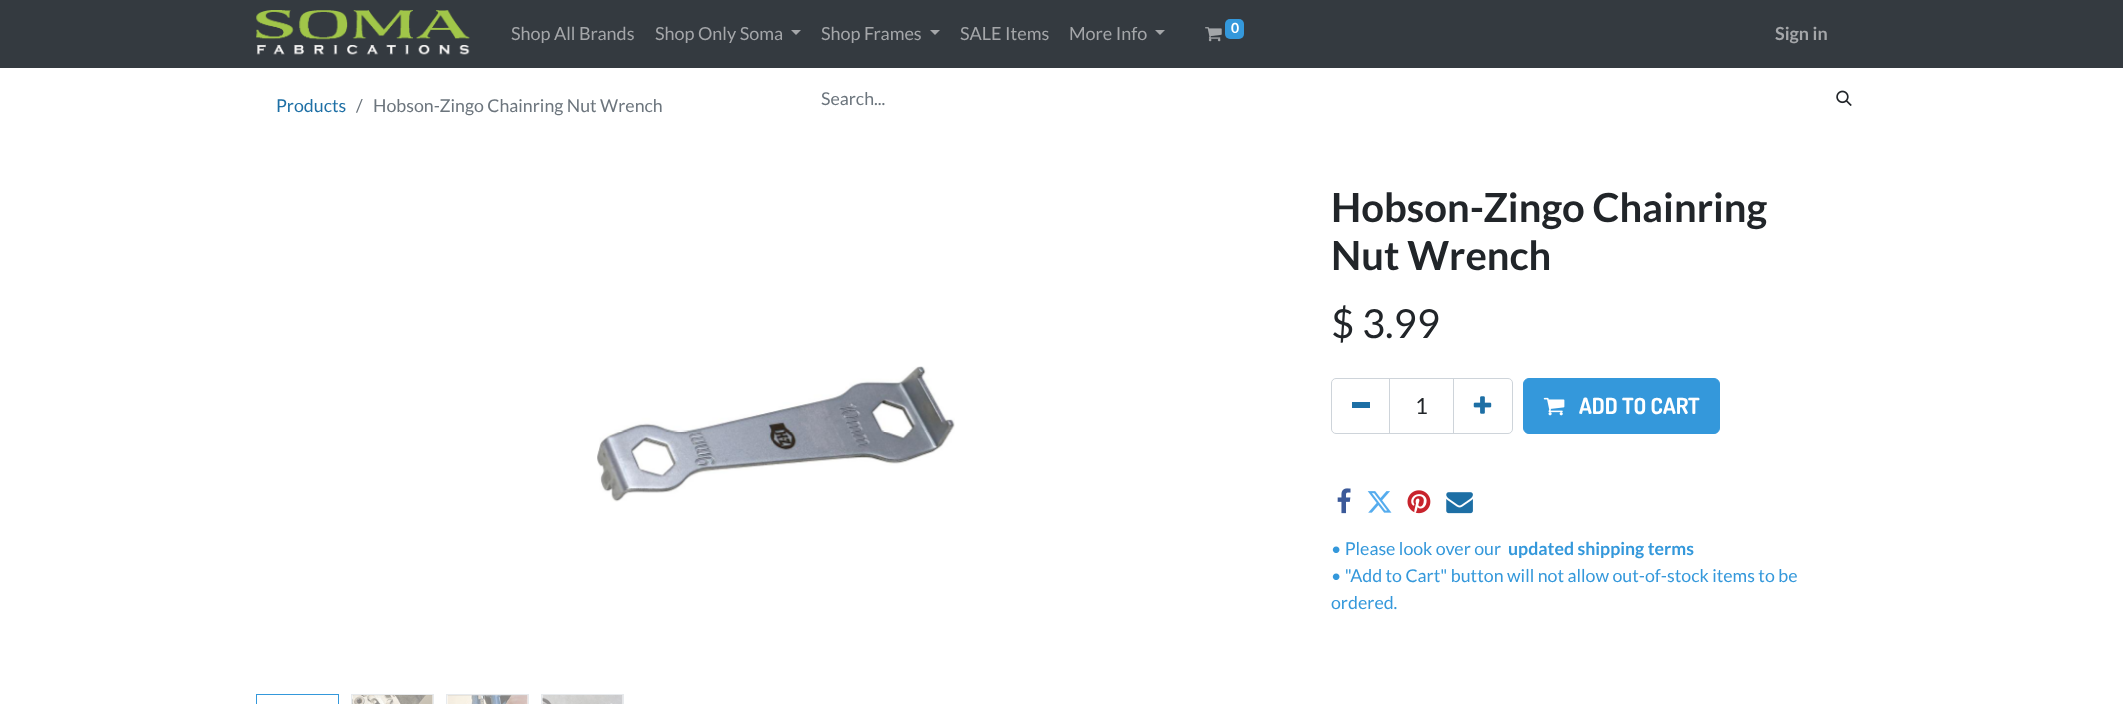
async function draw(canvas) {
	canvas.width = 2123;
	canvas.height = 704;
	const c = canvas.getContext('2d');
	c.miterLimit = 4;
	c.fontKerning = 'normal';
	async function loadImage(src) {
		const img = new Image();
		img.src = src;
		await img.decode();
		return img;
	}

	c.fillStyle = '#fff';
	c.fillRect(0, 0, 2123, 704);
	c.fillStyle = '#343a40';
	c.fillRect(0, 0, 2123, 68);
	c.drawImage(await loadImage('img1.png'), 256, 10, 214, 45);
	c.font = '18px Lato';
	c.fillStyle = '#a4a6a9';
	c.fillText('Shop All Brands', 511, 40);
	c.fillText('Shop Only Soma', 655, 40);
	c.beginPath();
	c.moveTo(791, 30);
	c.lineTo(801, 30);
	c.lineTo(796, 35);
	c.closePath();
	c.fill();
	c.fillText('Shop Frames', 821, 40);
	c.beginPath();
	c.moveTo(930, 30);
	c.lineTo(940, 30);
	c.lineTo(935, 35);
	c.closePath();
	c.fill();
	c.fillText('SALE Items', 960, 40);
	c.fillText('More Info', 1069, 40);
	c.beginPath();
	c.moveTo(1155, 30);
	c.lineTo(1165, 30);
	c.lineTo(1160, 35);
	c.closePath();
	c.fill();
	c.drawImage(await loadImage('img2.png'), 1205, 27, 17, 15);
	c.fillStyle = '#3498db';
	c.beginPath();
	c.roundRect(1225, 19, 19, 20, 5);
	c.fill();
	c.font = 'bold 14px Lato';
	c.fillStyle = '#fff';
	c.fillText('0', 1231, 33);
	c.font = 'bold 18px Lato';
	c.fillStyle = '#a4a6a9';
	c.fillText('Sign in', 1775, 40);
	c.font = '17.75px Lato';
	c.fillStyle = '#1d6fa5';
	c.fillText('Products', 276, 112);
	c.fillStyle = '#6c757d';
	for (const [text, x, y] of [
		['/', 356, 112],
		['Hobson-Zingo Chainring Nut Wrench', 373, 112],
		['Search...', 821, 105],
	]) {
		c.fillText(text, x, y);
	}
	c.drawImage(await loadImage('img3.png'), 1836, 90, 16, 16);
	c.drawImage(await loadImage('img4.png'), 597, 366, 358, 136);
	c.strokeStyle = '#3498db';
	c.strokeRect(256.5, 694.5, 82, 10);
	c.strokeStyle = '#e7eaed';
	c.strokeRect(351.5, 694.5, 82, 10);
	c.drawImage(await loadImage('img5.png'), 352, 695, 81, 9);
	c.strokeRect(446.5, 694.5, 82, 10);
	c.drawImage(await loadImage('img6.png'), 447, 695, 81, 9);
	c.strokeRect(541.5, 694.5, 82, 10);
	c.drawImage(await loadImage('img7.png'), 542, 695, 81, 9);
	c.font = 'bold 40px Lato';
	c.fillStyle = '#212529';
	c.fillText('Hobson-Zingo Chainring', 1331, 222);
	c.fillText('Nut Wrench', 1331, 270);
	c.font = '40px Lato';
	c.fillText('$ 3.99', 1331, 338);
	c.strokeStyle = '#ced4da';
	c.strokeRect(1389.5, 378.5, 64, 55);
	c.beginPath();
	c.roundRect(1331.5, 378.5, 58, 55, [4.5, 0, 0, 4.5]);
	c.stroke();
	c.fillStyle = '#1d6fa5';
	c.fillRect(1352, 402, 18, 6);
	c.font = '22.25px Lato';
	c.fillStyle = '#212529';
	c.fillText('1', 1415, 414);
	c.beginPath();
	c.roundRect(1453.5, 378.5, 59, 55, [0, 4.5, 4.5, 0]);
	c.stroke();
	c.drawImage(await loadImage('img8.png'), 1473, 396, 19, 18);
	c.fillStyle = '#3498db';
	c.beginPath();
	c.roundRect(1523.5, 378.5, 196, 55, 5.5);
	c.fill();
	c.strokeStyle = '#3498db';
	c.stroke();
	c.drawImage(await loadImage('img9.png'), 1543, 397, 22, 19);
	c.font = 'bold 22.25px Dosis';
	c.fillStyle = '#fff';
	c.fillText('ADD TO CART', 1579, 414);
	c.drawImage(await loadImage('img10.png'), 1337, 488, 14, 26);
	c.drawImage(await loadImage('img11.png'), 1367, 491, 25, 22);
	c.drawImage(await loadImage('img12.png'), 1407, 490, 24, 24);
	c.drawImage(await loadImage('img13.png'), 1446, 492, 27, 22);
	c.font = '17.75px Lato';
	c.fillStyle = '#3498db';
	c.fillText('• Please look over our', 1331, 555);
	c.font = 'bold 17.75px Lato';
	c.fillText('updated shipping terms', 1508, 555);
	c.font = '17.75px Lato';
	c.fillText('• "Add to Cart" button will not allow out-of-stock items to be', 1331, 582);
	c.fillText('ordered.', 1331, 609);
}

draw(document.querySelector('canvas'));
